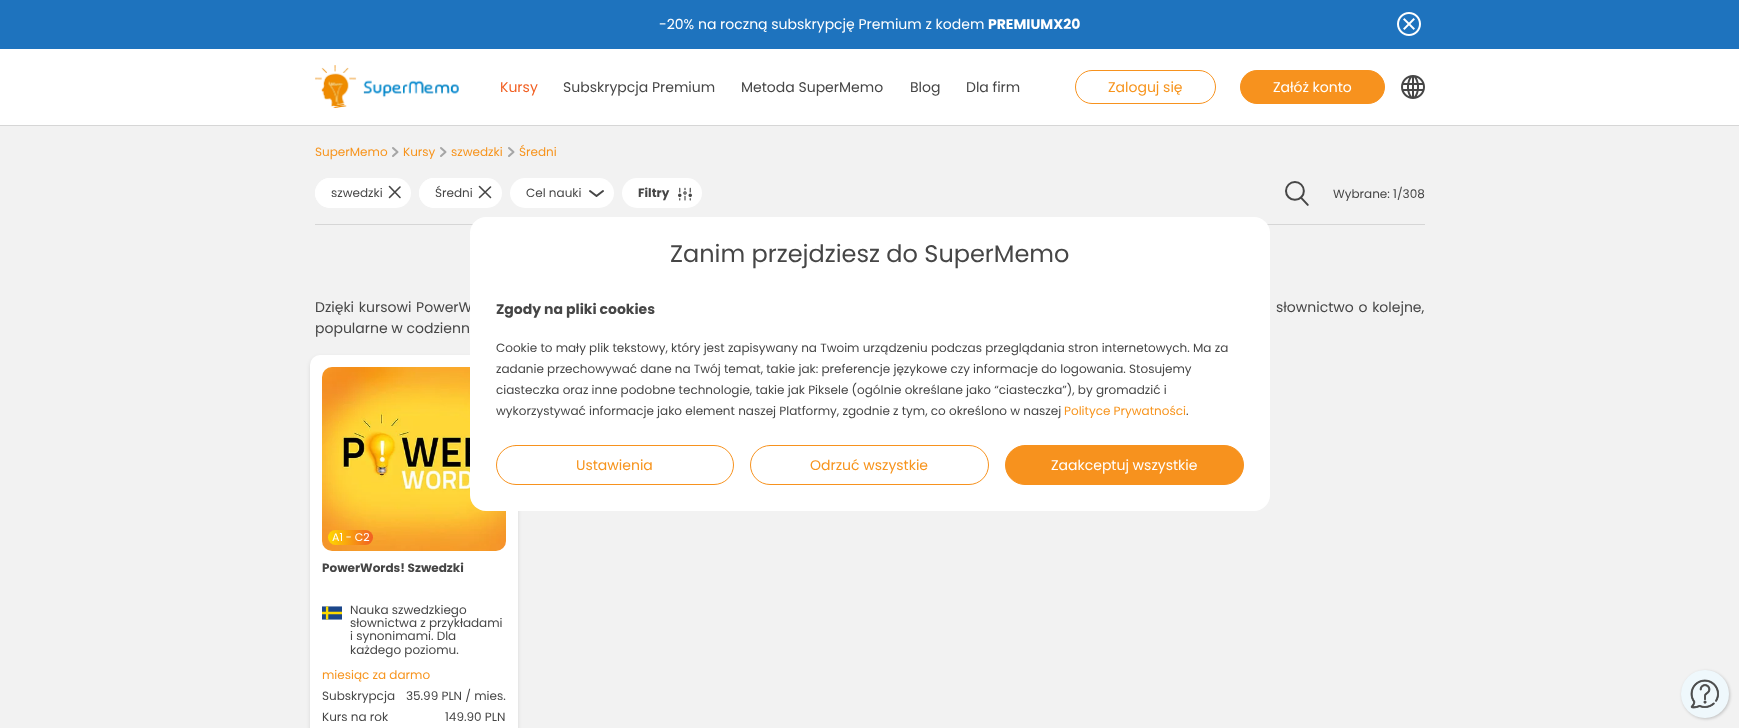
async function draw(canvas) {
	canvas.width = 1739;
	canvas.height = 728;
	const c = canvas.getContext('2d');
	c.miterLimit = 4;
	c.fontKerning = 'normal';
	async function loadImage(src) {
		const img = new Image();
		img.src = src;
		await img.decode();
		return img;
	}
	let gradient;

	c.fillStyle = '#f2f2f2';
	c.fillRect(0, 0, 1739, 728);
	for (const [x, y, w, h, color] of [
		[0, 49, 1739, 76, '#fff'],
		[0, 125, 1739, 1, '#d6d6d6'],
		[0, 0, 1739, 49, '#1e73be'],
	]) {
		c.fillStyle = color;
		c.fillRect(x, y, w, h);
	}
	c.font = '14px Poppins';
	c.fillStyle = '#fff';
	c.fillText('-20% na roczną subskrypcję Premium z kodem', 659, 29);
	c.font = 'bold 14px Poppins';
	c.fillText('PREMIUMX20', 988, 29);
	c.drawImage(await loadImage('img1.png'), 1397, 12, 24, 24);
	c.drawImage(await loadImage('img2.png'), 315, 65, 144, 43);
	c.font = '14px Poppins';
	c.fillStyle = '#f15f22';
	c.fillText('Kursy', 500, 92);
	c.fillStyle = '#464646';
	for (const [text, x, y] of [
		['Subskrypcja Premium', 563, 92],
		['Metoda SuperMemo', 741, 92],
		['Blog', 910, 92],
		['Dla firm', 966, 92],
	]) {
		c.fillText(text, x, y);
	}
	c.beginPath();
	c.roundRect(1075.5, 70.5, 140, 33, 16.5);
	c.strokeStyle = '#f7921e';
	c.stroke();
	c.fillStyle = '#f7941d';
	c.fillText('Zaloguj się', 1108, 92);
	c.fillStyle = '#f7921e';
	c.beginPath();
	c.roundRect(1240.5, 70.5, 144, 33, 16.5);
	c.fill();
	c.stroke();
	c.fillStyle = '#fff';
	c.fillText('Załóż konto', 1273, 92);
	c.drawImage(await loadImage('img3.png'), 1401, 75, 24, 24);
	c.font = '12px Poppins';
	c.fillStyle = '#f7941d';
	c.fillText('SuperMemo', 315, 156);
	c.fillText('Kursy', 403, 156);
	c.beginPath();
	c.moveTo(393, 148);
	c.lineTo(397.5, 152);
	c.lineTo(393, 156);
	c.moveTo(441, 148);
	c.lineTo(445.5, 152);
	c.lineTo(441, 156);
	c.strokeStyle = '#a6a6a6';
	c.lineWidth = 2;
	c.lineCap = 'round';
	c.lineJoin = 'round';
	c.stroke();
	c.fillText('szwedzki', 451, 156);
	c.fillText('Średni', 519, 156);
	c.beginPath();
	c.moveTo(509, 148);
	c.lineTo(513.5, 152);
	c.lineTo(509, 156);
	c.stroke();
	c.fillStyle = '#d6d6d6';
	c.fillRect(315, 224, 1110, 1);
	c.fillStyle = '#fff';
	c.beginPath();
	c.roundRect(315, 178, 96, 30, 15);
	c.fill();
	c.beginPath();
	c.roundRect(315, 178, 77, 30, 15);
	c.fill();
	c.fillStyle = '#464646';
	c.fillText('szwedzki', 331, 197);
	c.beginPath();
	c.moveTo(400, 187);
	c.lineTo(389.5, 197.5);
	c.moveTo(389.5, 186.5);
	c.lineTo(400, 197.5);
	c.strokeStyle = '#464646';
	c.lineWidth = 1.6;
	c.stroke();
	c.fillStyle = '#fff';
	c.beginPath();
	c.roundRect(419, 178, 83, 30, 15);
	c.fill();
	c.beginPath();
	c.roundRect(419, 178, 64, 30, 15);
	c.fill();
	c.fillStyle = '#464646';
	c.fillText('Średni', 435, 197);
	c.beginPath();
	c.moveTo(490.5, 187);
	c.lineTo(479.5, 197.5);
	c.moveTo(479.5, 186.5);
	c.lineTo(490.5, 197.5);
	c.stroke();
	c.fillStyle = '#fff';
	c.beginPath();
	c.roundRect(510, 178, 104, 30, 15);
	c.fill();
	c.fillStyle = '#464646';
	c.fillText('Cel nauki', 526, 197);
	c.beginPath();
	c.moveTo(603, 191);
	c.lineTo(596.5, 196);
	c.lineTo(590, 191);
	c.lineWidth = 2;
	c.stroke();
	c.fillStyle = '#fff';
	c.beginPath();
	c.roundRect(622, 178, 80, 30, 15);
	c.fill();
	c.font = 'bold 12px Poppins';
	c.fillStyle = '#464646';
	c.fillText('Filtry', 638, 197);
	c.drawImage(await loadImage('img4.png'), 678, 187, 14, 14);
	c.drawImage(await loadImage('img5.png'), 1285, 181, 24, 25);
	c.font = '12px Poppins';
	c.fillText('Wybrane: 1/308', 1333, 198);
	c.wordSpacing = '1px';
	c.font = '14px Poppins';
	c.fillText('Dzięki kursowi PowerW', 315, 312);
	c.fillText('słownictwo o kolejne,', 1276, 312);
	c.wordSpacing = '0px';
	c.fillText('popularne w codzienn', 315, 333);
	c.fillStyle = '#0000001a';
	c.filter = 'blur(2px)';
	c.beginPath();
	c.roundRect(310, 357, 208, 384, 10);
	c.fill();
	c.filter = 'none';
	c.fillStyle = '#fff';
	c.beginPath();
	c.roundRect(310, 355, 208, 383, 10);
	c.fill();
	c.drawImage(await loadImage('img6.png'), 322, 367, 184, 184);
	gradient = c.createLinearGradient(328, 538, 373, 538);
	gradient.addColorStop(0, '#ffd800');
	gradient.addColorStop(1, '#f15f22');
	c.fillStyle = gradient;
	c.beginPath();
	c.roundRect(328, 530, 45, 15, 7.5);
	c.fill();
	c.font = '11px Poppins';
	c.fillStyle = '#fff';
	c.fillText('A1 - C2', 332, 541);
	c.font = 'bold 12px Poppins';
	c.fillStyle = '#464646';
	c.fillText('PowerWords! Szwedzki', 322, 572);
	c.drawImage(await loadImage('img7.png'), 322, 606, 20, 14);
	c.font = '12px Poppins';
	for (const [text, x, y] of [
		['Nauka szwedzkiego', 350, 614],
		['słownictwa z przykładami', 350, 627],
		['i synonimami. Dla', 350, 640],
		['każdego poziomu.', 350, 654],
	]) {
		c.fillText(text, x, y);
	}
	c.fillStyle = '#f7941d';
	c.fillText('miesiąc za darmo', 322, 679);
	c.fillStyle = '#464646';
	for (const [text, x, y] of [
		['Subskrypcja', 322, 700],
		['35.99 PLN / mies.', 406, 700],
		['Kurs na rok', 322, 721],
		['149.90 PLN', 445, 721],
	]) {
		c.fillText(text, x, y);
	}
	c.fillStyle = '#fff';
	c.beginPath();
	c.roundRect(470, 217, 800, 294, 16);
	c.fill();
	c.font = '24px Poppins';
	c.fillStyle = '#464646';
	c.fillText('Zanim przejdziesz do SuperMemo', 670, 262);
	c.font = 'bold 14px Poppins';
	c.fillText('Zgody na pliki cookies', 496, 314);
	c.font = '12px Poppins';
	for (const [text, x, y] of [
		['Cookie to mały plik tekstowy, który jest zapisywany na Twoim urządzeniu podczas przeglądania stron internetowych. Ma za', 496, 352],
		['zadanie przechowywać dane na Twój temat, takie jak: preferencje językowe czy informacje do logowania. Stosujemy', 496, 373],
		['ciasteczka oraz inne podobne technologie, takie jak Piksele (ogólnie określane jako “ciasteczka”), by gromadzić i', 496, 394],
		['wykorzystywać informacje jako element naszej Platformy, zgodnie z tym, co określono w naszej', 496, 415],
	]) {
		c.fillText(text, x, y);
	}
	c.fillStyle = '#f7941d';
	c.fillText('Polityce Prywatności', 1064, 415);
	c.fillStyle = '#464646';
	c.fillText('.', 1186, 415);
	c.beginPath();
	c.roundRect(496.5, 445.5, 237, 39, 19.5);
	c.strokeStyle = '#f7921e';
	c.lineWidth = 1;
	c.lineJoin = 'miter';
	c.stroke();
	c.font = '14px Poppins';
	c.fillStyle = '#f7941d';
	c.fillText('Ustawienia', 576, 470);
	c.beginPath();
	c.roundRect(750.5, 445.5, 238, 39, 19.5);
	c.stroke();
	c.fillText('Odrzuć wszystkie', 810, 470);
	c.fillStyle = '#f7921e';
	c.beginPath();
	c.roundRect(1005.5, 445.5, 238, 39, 19.5);
	c.fill();
	c.stroke();
	c.fillStyle = '#fff';
	c.fillText('Zaakceptuj wszystkie', 1051, 470);
	c.fillStyle = '#00000033';
	c.filter = 'blur(1.5px)';
	c.beginPath();
	c.roundRect(1682, 671, 48, 48, 24);
	c.fill();
	c.filter = 'none';
	c.fillStyle = '#eff8fc';
	c.beginPath();
	c.arc(1705, 694, 24, 0, 2 * Math.PI);
	c.fill();
	c.drawImage(await loadImage('img8.png'), 1690, 679, 29, 30);
}

draw(document.querySelector('canvas'));
